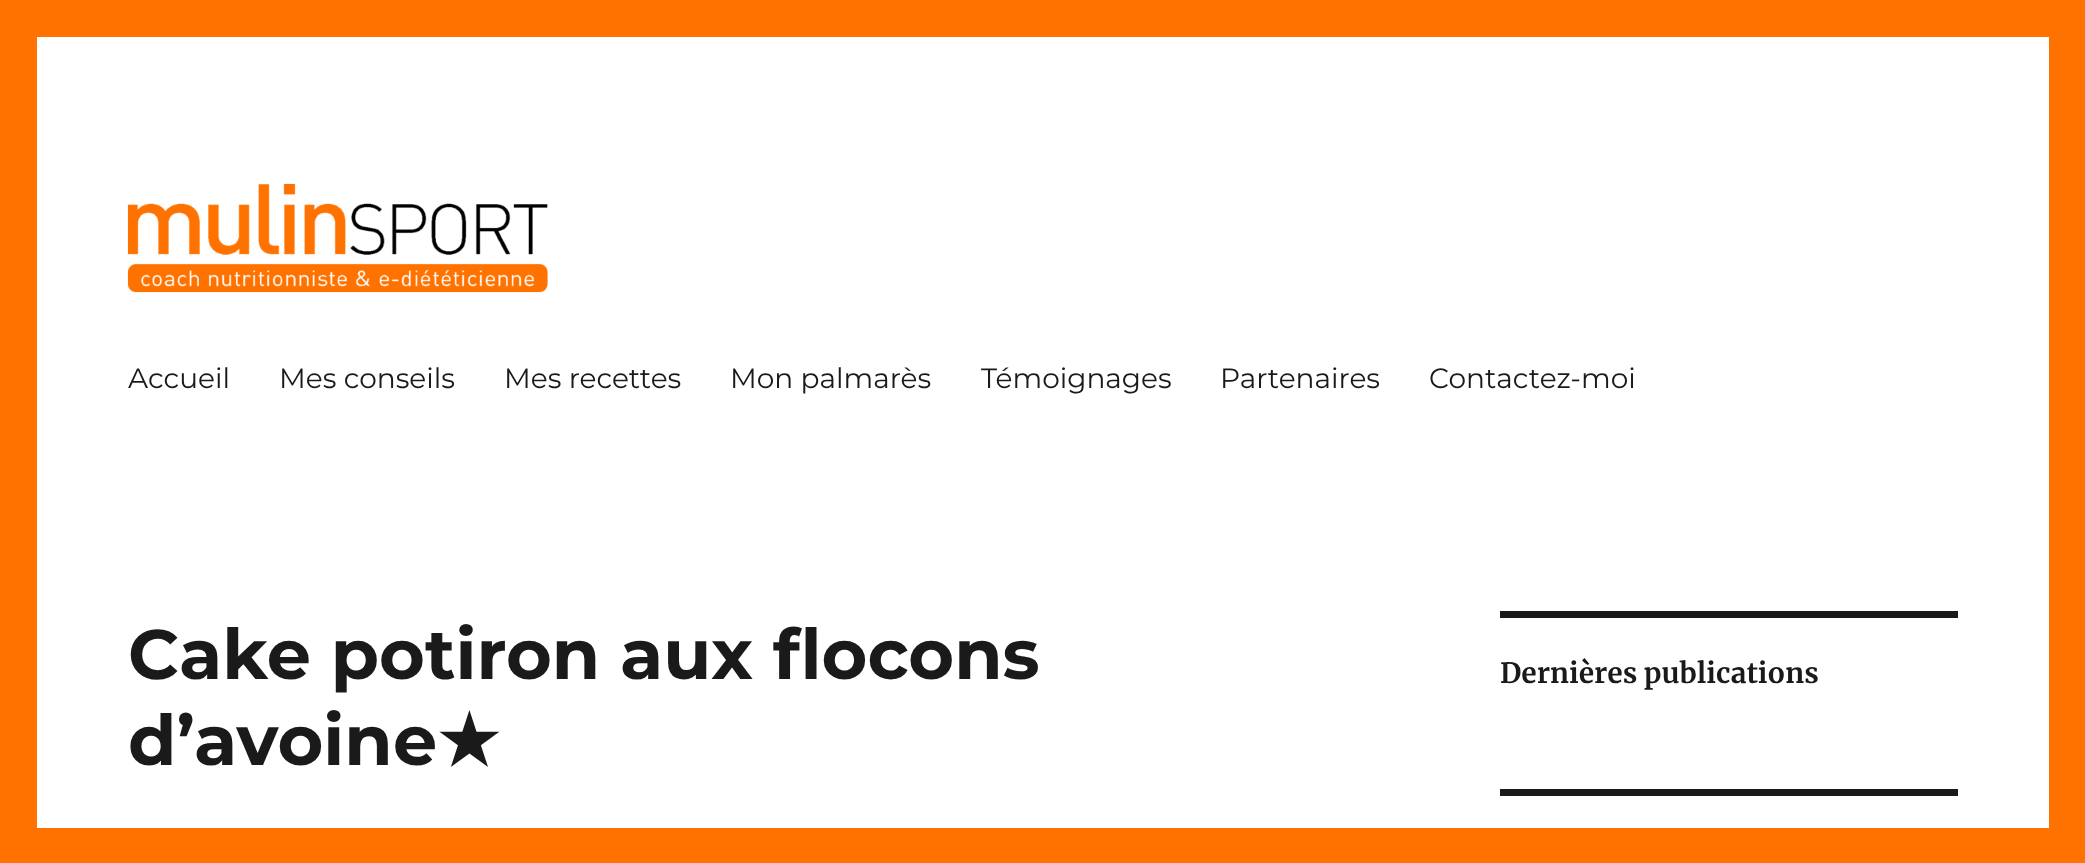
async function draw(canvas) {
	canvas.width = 2085;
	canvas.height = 863;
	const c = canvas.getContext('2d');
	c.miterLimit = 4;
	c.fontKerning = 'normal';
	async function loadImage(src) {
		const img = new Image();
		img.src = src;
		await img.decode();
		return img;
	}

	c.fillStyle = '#ff7200';
	c.fillRect(0, 0, 2085, 863);
	c.fillStyle = '#fff';
	c.fillRect(37, 37, 2012, 791);
	c.drawImage(await loadImage('img1.png'), 127, 183, 421, 110);
	c.font = '100 28px Montserrat';
	c.fillStyle = '#1a1a1a';
	for (const [text, x, y] of [
		['Accueil', 128, 388],
		['Mes conseils', 279, 388],
		['Mes recettes', 504, 388],
		['Mon palmarès', 730, 388],
		['Témoignages', 981, 388],
		['Partenaires', 1220, 388],
		['Contactez-moi', 1429, 388],
	]) {
		c.fillText(text, x, y);
	}
	c.font = '100 70px "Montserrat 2"';
	c.fillText('Cake potiron aux flocons', 128, 679);
	c.fillText('d’avoine', 128, 765);
	c.font = 'bold 70px DejaVu Sans';
	c.fillText('★', 437, 765);
	c.fillRect(1500, 611, 458, 7);
	c.font = 'bold 28px Merriweather';
	c.fillText('Dernières publications', 1500, 683);
	c.fillRect(1500, 789, 458, 7);
}

draw(document.querySelector('canvas'));
